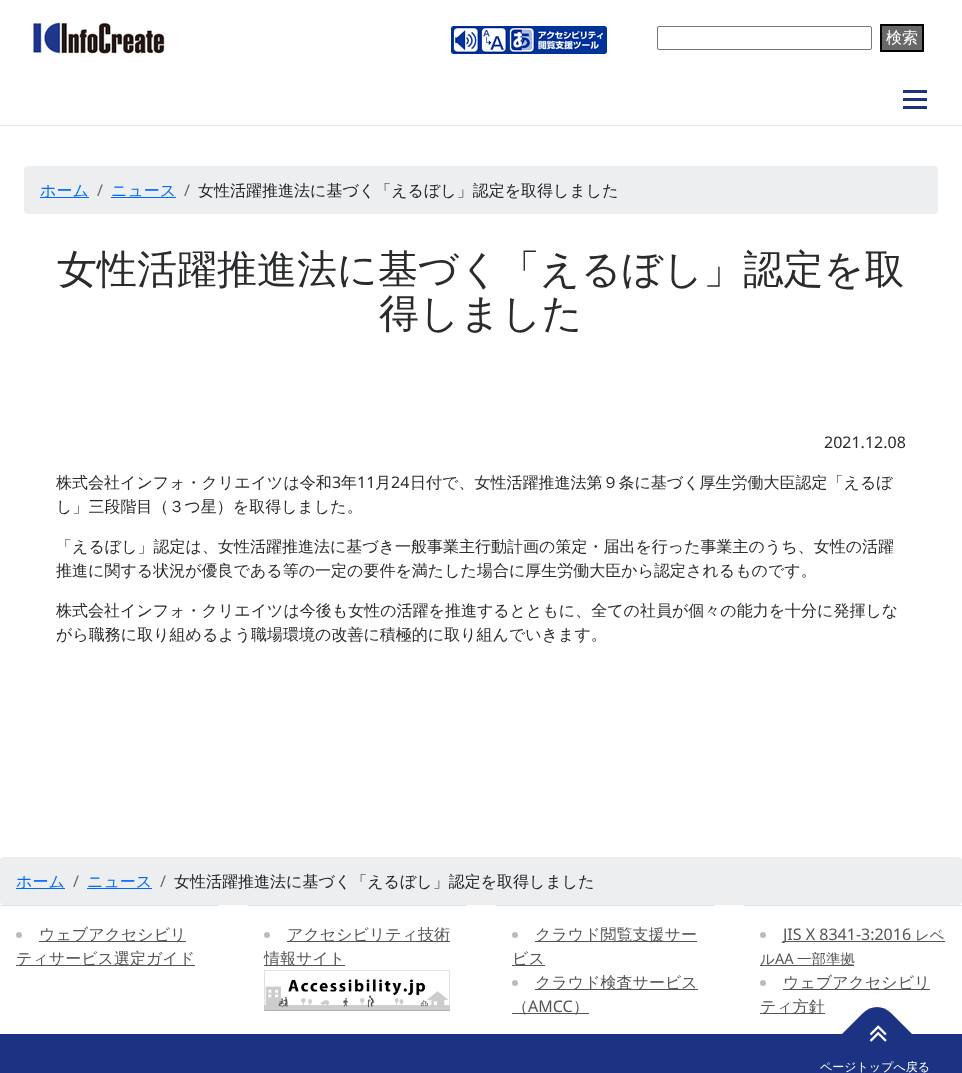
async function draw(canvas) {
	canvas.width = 962;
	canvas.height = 1073;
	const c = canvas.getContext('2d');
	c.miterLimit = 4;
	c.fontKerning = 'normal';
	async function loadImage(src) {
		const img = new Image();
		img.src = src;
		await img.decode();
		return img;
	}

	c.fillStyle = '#fff';
	c.fillRect(0, 0, 962, 1073);
	c.drawImage(await loadImage('img1.png'), 33, 22, 132, 32);
	c.drawImage(await loadImage('img2.png'), 451, 26, 156, 28);
	c.beginPath();
	c.roundRect(657.5, 26.5, 214, 23, 1.5);
	c.strokeStyle = '#767676';
	c.stroke();
	c.fillStyle = '#686868';
	c.beginPath();
	c.rect(881, 25, 42, 26);
	c.fill();
	c.strokeStyle = '#000';
	c.lineWidth = 2;
	c.stroke();
	c.font = '500 16px WenQuanYi Zen Hei';
	c.fillStyle = '#fff';
	c.fillText('検索', 886, 43);
	for (const [x, y, w, h, color] of [
		[903, 98, 24, 3, '#1c3383'],
		[903, 90, 24, 3, '#1c3383'],
		[903, 106, 24, 3, '#1c3383'],
		[0, 125, 962, 1, '#e9e9e9'],
	]) {
		c.fillStyle = color;
		c.fillRect(x, y, w, h);
	}
	c.fillStyle = '#eceeef';
	c.beginPath();
	c.roundRect(24, 166, 914, 48, 4);
	c.fill();
	c.fillStyle = '#0069ff';
	c.fillRect(40, 197, 49, 1);
	c.fillText('ホーム', 40, 196);
	c.font = '16px Noto Sans';
	c.fillStyle = '#636c72';
	c.fillText('/', 97, 196);
	c.font = '500 16px WenQuanYi Zen Hei';
	c.fillStyle = '#0069ff';
	c.fillText('ニュース', 111, 196);
	c.fillRect(111, 197, 65, 1);
	c.font = '16px Noto Sans';
	c.fillStyle = '#636c72';
	c.fillText('/', 184, 196);
	c.font = '500 16px WenQuanYi Zen Hei';
	c.fillStyle = '#212529';
	c.fillText('女性活躍推進法に基づく「えるぼし」認定を取得しました', 198, 196);
	c.font = '500 40px WenQuanYi Zen Hei';
	c.fillStyle = '#292b2c';
	c.fillText('女性活躍推進法に基づく「えるぼし」認定を取', 57, 283);
	c.fillText('得しました', 379, 327);
	c.font = '16px Noto Sans';
	c.fillText('2021.12.08', 824, 448);
	c.font = '500 16px WenQuanYi Zen Hei';
	c.fillText('株式会社インフォ・クリエイツは令和', 56, 488);
	c.font = '16px Noto Sans';
	c.fillText('3', 332, 488);
	c.font = '500 16px WenQuanYi Zen Hei';
	c.fillText('年', 341, 488);
	c.font = '16px Noto Sans';
	c.fillText('11', 357, 488);
	c.font = '500 16px WenQuanYi Zen Hei';
	c.fillText('月', 375, 488);
	c.font = '16px Noto Sans';
	c.fillText('24', 391, 488);
	c.font = '500 16px WenQuanYi Zen Hei';
	for (const [text, x, y] of [
		['日付で、女性活躍推進法第９条に基づく厚生労働大臣認定「えるぼ', 410, 488],
		['し」三段階目（３つ星）を取得しました。', 56, 512],
		['「えるぼし」認定は、女性活躍推進法に基づき一般事業主行動計画の策定・届出を行った事業主のうち、女性の活躍', 56, 552],
		['推進に関する状況が優良である等の一定の要件を満たした場合に厚生労働大臣から認定されるものです。', 56, 576],
		['株式会社インフォ・クリエイツは今後も女性の活躍を推進するとともに、全ての社員が個々の能力を十分に発揮しな', 56, 616],
		['がら職務に取り組めるよう職場環境の改善に積極的に取り組んでいきます。', 56, 640],
	]) {
		c.fillText(text, x, y);
	}
	c.fillStyle = '#eceeef';
	c.beginPath();
	c.roundRect(0, 857, 962, 48, 4);
	c.fill();
	c.fillStyle = '#0069ff';
	c.fillRect(16, 888, 49, 1);
	c.fillText('ホーム', 16, 887);
	c.font = '16px Noto Sans';
	c.fillStyle = '#636c72';
	c.fillText('/', 73, 887);
	c.font = '500 16px WenQuanYi Zen Hei';
	c.fillStyle = '#0069ff';
	c.fillText('ニュース', 87, 887);
	c.fillRect(87, 888, 65, 1);
	c.font = '16px Noto Sans';
	c.fillStyle = '#636c72';
	c.fillText('/', 160, 887);
	c.font = '500 16px WenQuanYi Zen Hei';
	c.fillStyle = '#212529';
	c.fillText('女性活躍推進法に基づく「えるぼし」認定を取得しました', 174, 887);
	c.fillStyle = '#dee2e6';
	c.fillRect(0, 905, 218, 1);
	c.fillStyle = '#bbb';
	c.beginPath();
	c.arc(19, 935, 3, 0, 2 * Math.PI);
	c.fill();
	c.fillStyle = '#555';
	c.fillRect(39, 941, 147, 1);
	c.fillText('ウェブアクセシビリ', 39, 940);
	c.fillRect(16, 965, 179, 1);
	c.fillText('ティサービス選定ガイド', 16, 964);
	c.fillStyle = '#dee2e6';
	c.fillRect(248, 905, 218, 1);
	c.fillStyle = '#bbb';
	c.beginPath();
	c.arc(267, 935, 3, 0, 2 * Math.PI);
	c.fill();
	c.fillStyle = '#555';
	c.fillRect(287, 941, 163, 1);
	c.fillText('アクセシビリティ技術', 287, 940);
	c.fillRect(264, 965, 81, 1);
	c.fillText('情報サイト', 264, 964);
	c.drawImage(await loadImage('img3.png'), 264, 970, 186, 41);
	c.fillStyle = '#dee2e6';
	c.fillRect(496, 905, 218, 1);
	c.fillStyle = '#bbb';
	c.beginPath();
	c.arc(515, 935, 3, 0, 2 * Math.PI);
	c.fill();
	c.fillStyle = '#555';
	c.fillRect(535, 941, 162, 1);
	c.fillText('クラウド閲覧支援サー', 535, 940);
	c.fillRect(512, 965, 33, 1);
	c.fillText('ビス', 512, 964);
	c.fillStyle = '#bbb';
	c.beginPath();
	c.arc(515, 983, 3, 0, 2 * Math.PI);
	c.fill();
	c.fillStyle = '#555';
	c.fillRect(535, 989, 163, 1);
	c.fillText('クラウド検査サービス', 535, 988);
	c.fillRect(512, 1013, 77, 1);
	c.fillText('（', 512, 1012);
	c.font = '16px Noto Sans';
	c.fillText('AMCC', 528, 1012);
	c.font = '500 16px WenQuanYi Zen Hei';
	c.fillText('）', 573, 1012);
	c.fillStyle = '#dee2e6';
	c.fillRect(744, 905, 218, 1);
	c.fillStyle = '#bbb';
	c.beginPath();
	c.arc(763, 935, 3, 0, 2 * Math.PI);
	c.fill();
	c.fillStyle = '#555';
	c.fillRect(783, 941, 162, 1);
	c.font = '16px Noto Sans';
	c.fillText('JIS X 8341-3:2016', 783, 940);
	c.font = '500 14.5px WenQuanYi Zen Hei';
	c.fillText('レベ', 915, 940);
	c.fillText('ル', 760, 964);
	c.fillRect(760, 965, 94, 1);
	c.font = '14.5px Noto Sans';
	c.fillText('AA', 775, 964);
	c.font = '500 14.5px WenQuanYi Zen Hei';
	c.fillText('一部準拠', 797, 964);
	c.fillStyle = '#bbb';
	c.beginPath();
	c.arc(763, 983, 3, 0, 2 * Math.PI);
	c.fill();
	c.fillStyle = '#555';
	c.fillRect(783, 989, 147, 1);
	c.font = '500 16px WenQuanYi Zen Hei';
	c.fillText('ウェブアクセシビリ', 783, 988);
	c.fillRect(760, 1013, 65, 1);
	c.fillText('ティ方針', 760, 1012);
	c.fillStyle = '#1c3383';
	c.fillRect(0, 1034, 962, 39);
	c.beginPath();
	c.moveTo(842, 1034);
	c.lineTo(863, 1013);
	c.bezierCurveTo(871, 1005, 883, 1005, 891, 1013);
	c.lineTo(912, 1034);
	c.lineTo(877, 1069);
	c.closePath();
	c.fill();
	c.drawImage(await loadImage('img4.png'), 869, 1025, 18, 17);
	c.font = '500 12px WenQuanYi Zen Hei';
	c.fillStyle = '#fff';
	c.fillText('ページトップへ戻る', 820, 1071);
}

draw(document.querySelector('canvas'));
